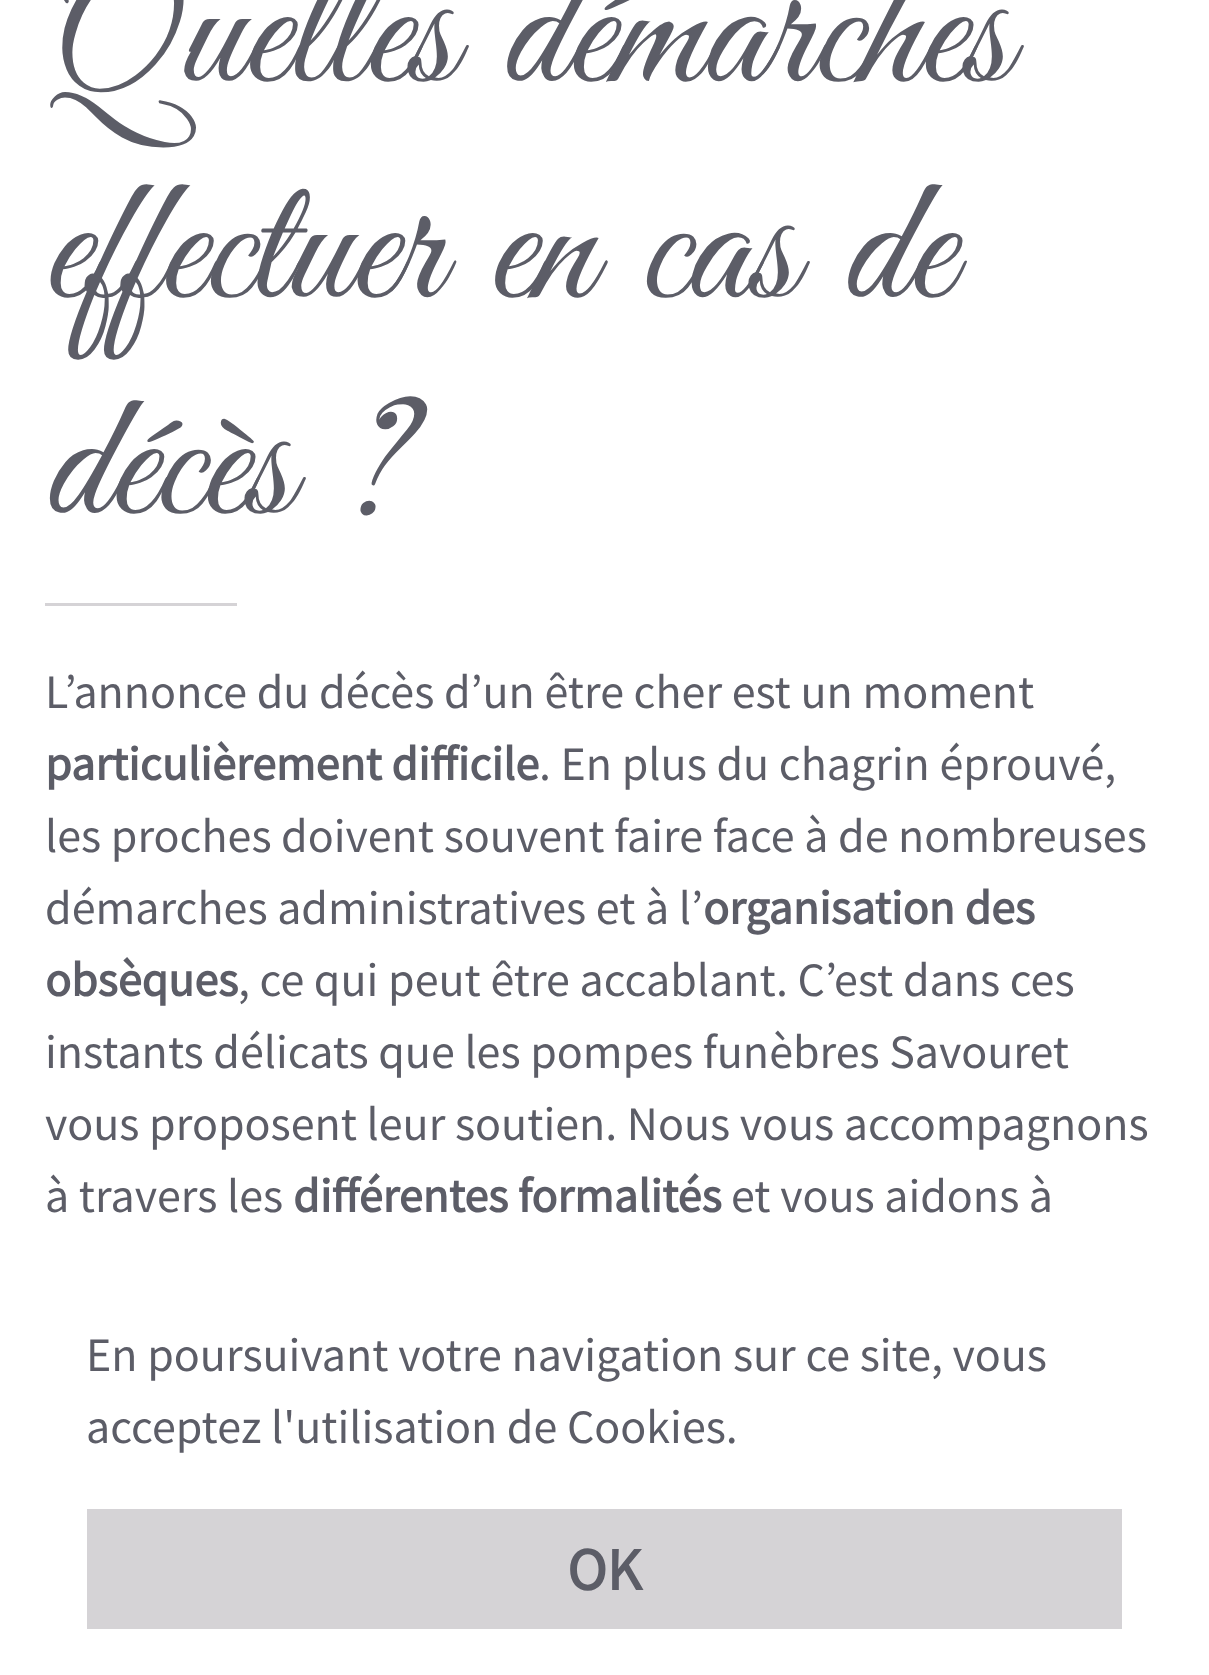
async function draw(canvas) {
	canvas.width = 1209;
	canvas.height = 1675;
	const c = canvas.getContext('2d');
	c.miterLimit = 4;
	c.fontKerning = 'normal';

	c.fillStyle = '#fff';
	c.fillRect(0, 0, 1209, 1675);
	c.font = '180px Great Vibes';
	c.fillStyle = '#5c5d67';
	for (const [text, x, y] of [
		['Quelles démarches', 45, 81],
		['effectuer en cas de', 45, 297],
		['décès ?', 45, 513],
	]) {
		c.fillText(text, x, y);
	}
	c.fillStyle = '#d5d3d6';
	c.fillRect(45, 603, 192, 3);
	c.font = '48px Source Sans Pro';
	c.fillStyle = '#5c5d67';
	c.fillText('L’annonce du décès d’un être cher est un moment', 45, 708);
	c.font = 'bold 48px Source Sans Pro';
	c.fillText('particulièrement difficile', 45, 780);
	c.font = '48px Source Sans Pro';
	for (const [text, x, y] of [
		['. En plus du chagrin éprouvé,', 539, 780],
		['les proches doivent souvent faire face à de nombreuses', 45, 852],
		['démarches administratives et à l’', 45, 924],
	]) {
		c.fillText(text, x, y);
	}
	c.font = 'bold 48px Source Sans Pro';
	c.fillText('organisation des', 703, 924);
	c.fillText('obsèques', 45, 996);
	c.font = '48px Source Sans Pro';
	for (const [text, x, y] of [
		[', ce qui peut être accablant. C’est dans ces', 238, 996],
		['instants délicats que les pompes funèbres Savouret', 45, 1068],
		['vous proposent leur soutien. Nous vous accompagnons', 45, 1140],
		['à travers les', 45, 1212],
	]) {
		c.fillText(text, x, y);
	}
	c.font = 'bold 48px Source Sans Pro';
	c.fillText('différentes formalités', 293, 1212);
	c.font = '48px Source Sans Pro';
	for (const [text, x, y] of [
		['et vous aidons à', 731, 1212],
		['En poursuivant votre navigation sur ce site, vous', 86, 1371],
		['acceptez l\'utilisation de Cookies.', 86, 1443],
	]) {
		c.fillText(text, x, y);
	}
	c.fillStyle = '#d5d3d6';
	c.fillRect(87, 1509, 1035, 120);
	c.font = 'bold 60px Source Sans Pro';
	c.fillStyle = '#5c5d67';
	c.fillText('OK', 567, 1590);
}

draw(document.querySelector('canvas'));
